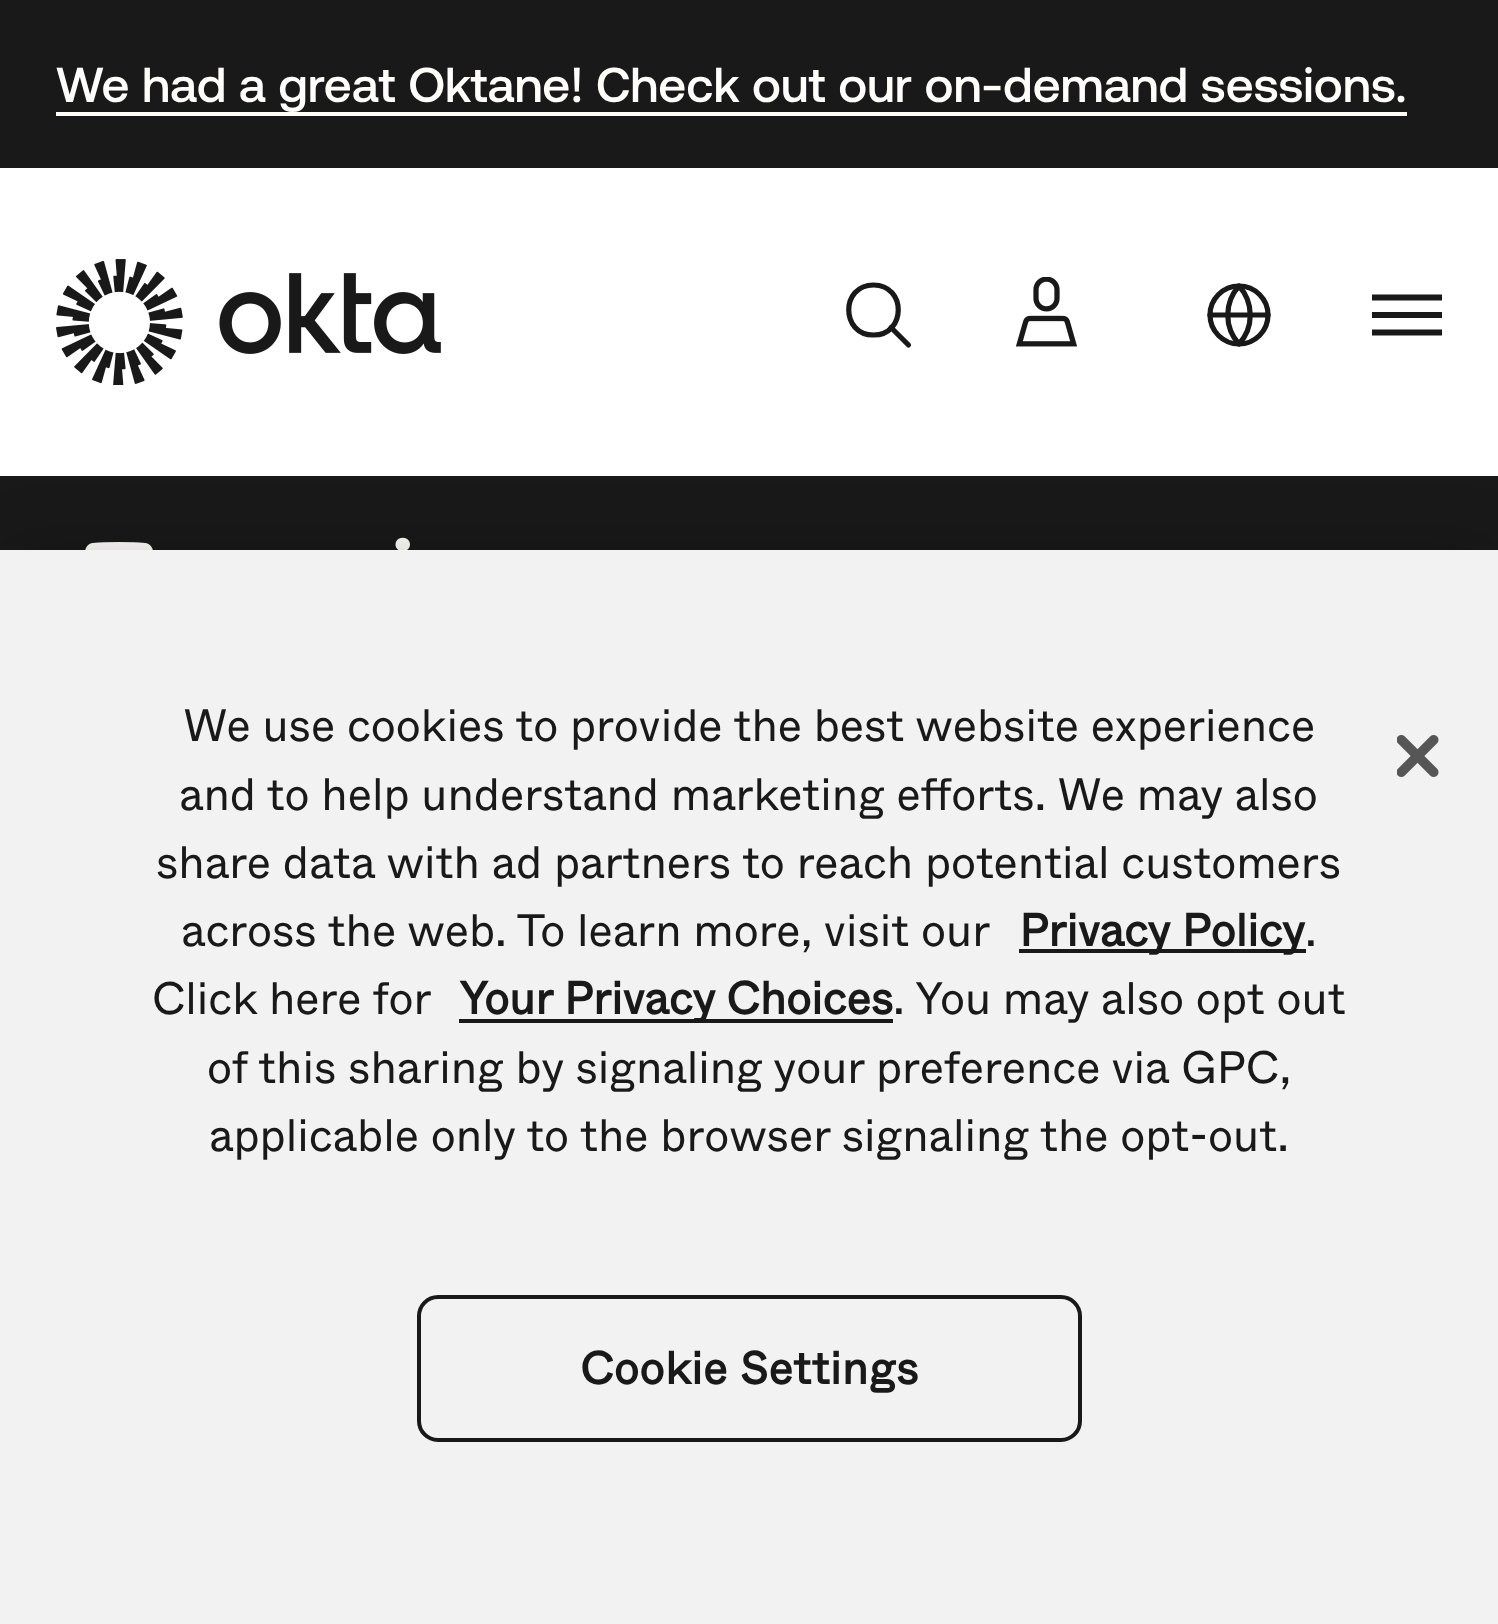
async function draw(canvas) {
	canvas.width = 1498;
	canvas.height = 1624;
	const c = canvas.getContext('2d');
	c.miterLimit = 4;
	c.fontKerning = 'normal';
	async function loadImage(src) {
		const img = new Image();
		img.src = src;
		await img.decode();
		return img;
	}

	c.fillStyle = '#191919';
	c.fillRect(0, 0, 1498, 1624);
	c.fillStyle = '#fff';
	c.fillRect(0, 168, 1498, 308);
	c.fillStyle = '#fffefa';
	c.fillRect(56, 112, 1351, 4);
	c.font = '500 49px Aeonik';
	c.fillText('We had a great Oktane! Check out our on-demand sessions.', 56, 102);
	c.beginPath();
	c.moveTo(873.5, 335);
	c.bezierCurveTo(906.5, 335, 906.5, 285, 873.5, 285);
	c.bezierCurveTo(840.5, 285, 840.5, 335, 873.5, 335);
	c.closePath();
	c.strokeStyle = '#191919';
	c.lineWidth = 5.2;
	c.lineCap = 'round';
	c.lineJoin = 'round';
	c.stroke();
	c.beginPath();
	c.moveTo(908.5, 345);
	c.lineTo(891, 327.5);
	c.stroke();
	c.beginPath();
	c.moveTo(1239, 344);
	c.bezierCurveTo(1255, 344, 1268, 331, 1268, 315);
	c.bezierCurveTo(1268, 299, 1255, 286, 1239, 286);
	c.bezierCurveTo(1223, 286, 1210, 299, 1210, 315);
	c.bezierCurveTo(1210, 331, 1223, 344, 1239, 344);
	c.closePath();
	c.stroke();
	c.beginPath();
	c.moveTo(1210, 315);
	c.lineTo(1268, 315);
	c.stroke();
	c.beginPath();
	c.moveTo(1239, 286);
	c.bezierCurveTo(1254, 302.5, 1254, 327.5, 1239, 344);
	c.bezierCurveTo(1224, 327.5, 1224, 302.5, 1239, 286);
	c.closePath();
	c.stroke();
	c.drawImage(await loadImage('img1.png'), 56, 259, 385, 126);
	c.drawImage(await loadImage('img2.png'), 1015, 277, 63, 70);
	c.beginPath();
	c.moveTo(1372, 332.5);
	c.lineTo(1442, 332.5);
	c.lineWidth = 5.8;
	c.lineCap = 'butt';
	c.lineJoin = 'miter';
	c.stroke();
	c.beginPath();
	c.moveTo(1372, 297.5);
	c.lineTo(1442, 297.5);
	c.stroke();
	c.fillStyle = '#191919';
	c.fillRect(1372, 312, 70, 6);
	c.drawImage(await loadImage('img3.png'), 85, 542, 68, 8);
	c.drawImage(await loadImage('img4.png'), 395, 537, 15, 13);
	c.fillStyle = '#00000033';
	c.filter = 'blur(31.5px)';
	c.beginPath();
	c.rect(0, 550, 1498, 1074);
	c.fill();
	c.filter = 'none';
	c.fillStyle = '#f2f2f2';
	c.fillRect(0, 550, 1498, 1074);
	c.font = '300 45.5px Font';
	c.fillStyle = '#191919';
	for (const [text, x, y] of [
		['We use cookies to provide the best website experience', 183, 741],
		['and to help understand marketing efforts. We may also', 179, 810],
		['share data with ad partners to reach potential customers', 156, 878],
		['across the web. To learn more, visit our', 181, 946],
	]) {
		c.fillText(text, x, y);
	}
	c.fillRect(1019, 949, 287, 4);
	c.font = 'bold 45.5px Font';
	c.fillText('Privacy Policy', 1019, 946);
	c.font = '300 45.5px Font';
	c.fillText('.', 1305, 946);
	c.fillText('Click here for', 152, 1014);
	c.fillRect(459, 1019, 434, 4);
	c.font = 'bold 45.5px Font';
	c.fillText('Your Privacy Choices', 459, 1014);
	c.font = '300 45.5px Font';
	for (const [text, x, y] of [
		['. You may also opt out', 893, 1014],
		['of this sharing by signaling your preference via GPC,', 207, 1083],
		['applicable only to the browser signaling the opt-out.', 209, 1151],
	]) {
		c.fillText(text, x, y);
	}
	c.beginPath();
	c.roundRect(419, 1297, 661, 143, 19);
	c.lineWidth = 4;
	c.stroke();
	c.letterSpacing = '0.5px';
	c.font = 'bold 45.5px Font';
	c.fillText('Cookie Settings', 580, 1384);
	c.drawImage(await loadImage('img5.png'), 1397, 735, 42, 42);
}

draw(document.querySelector('canvas'));
